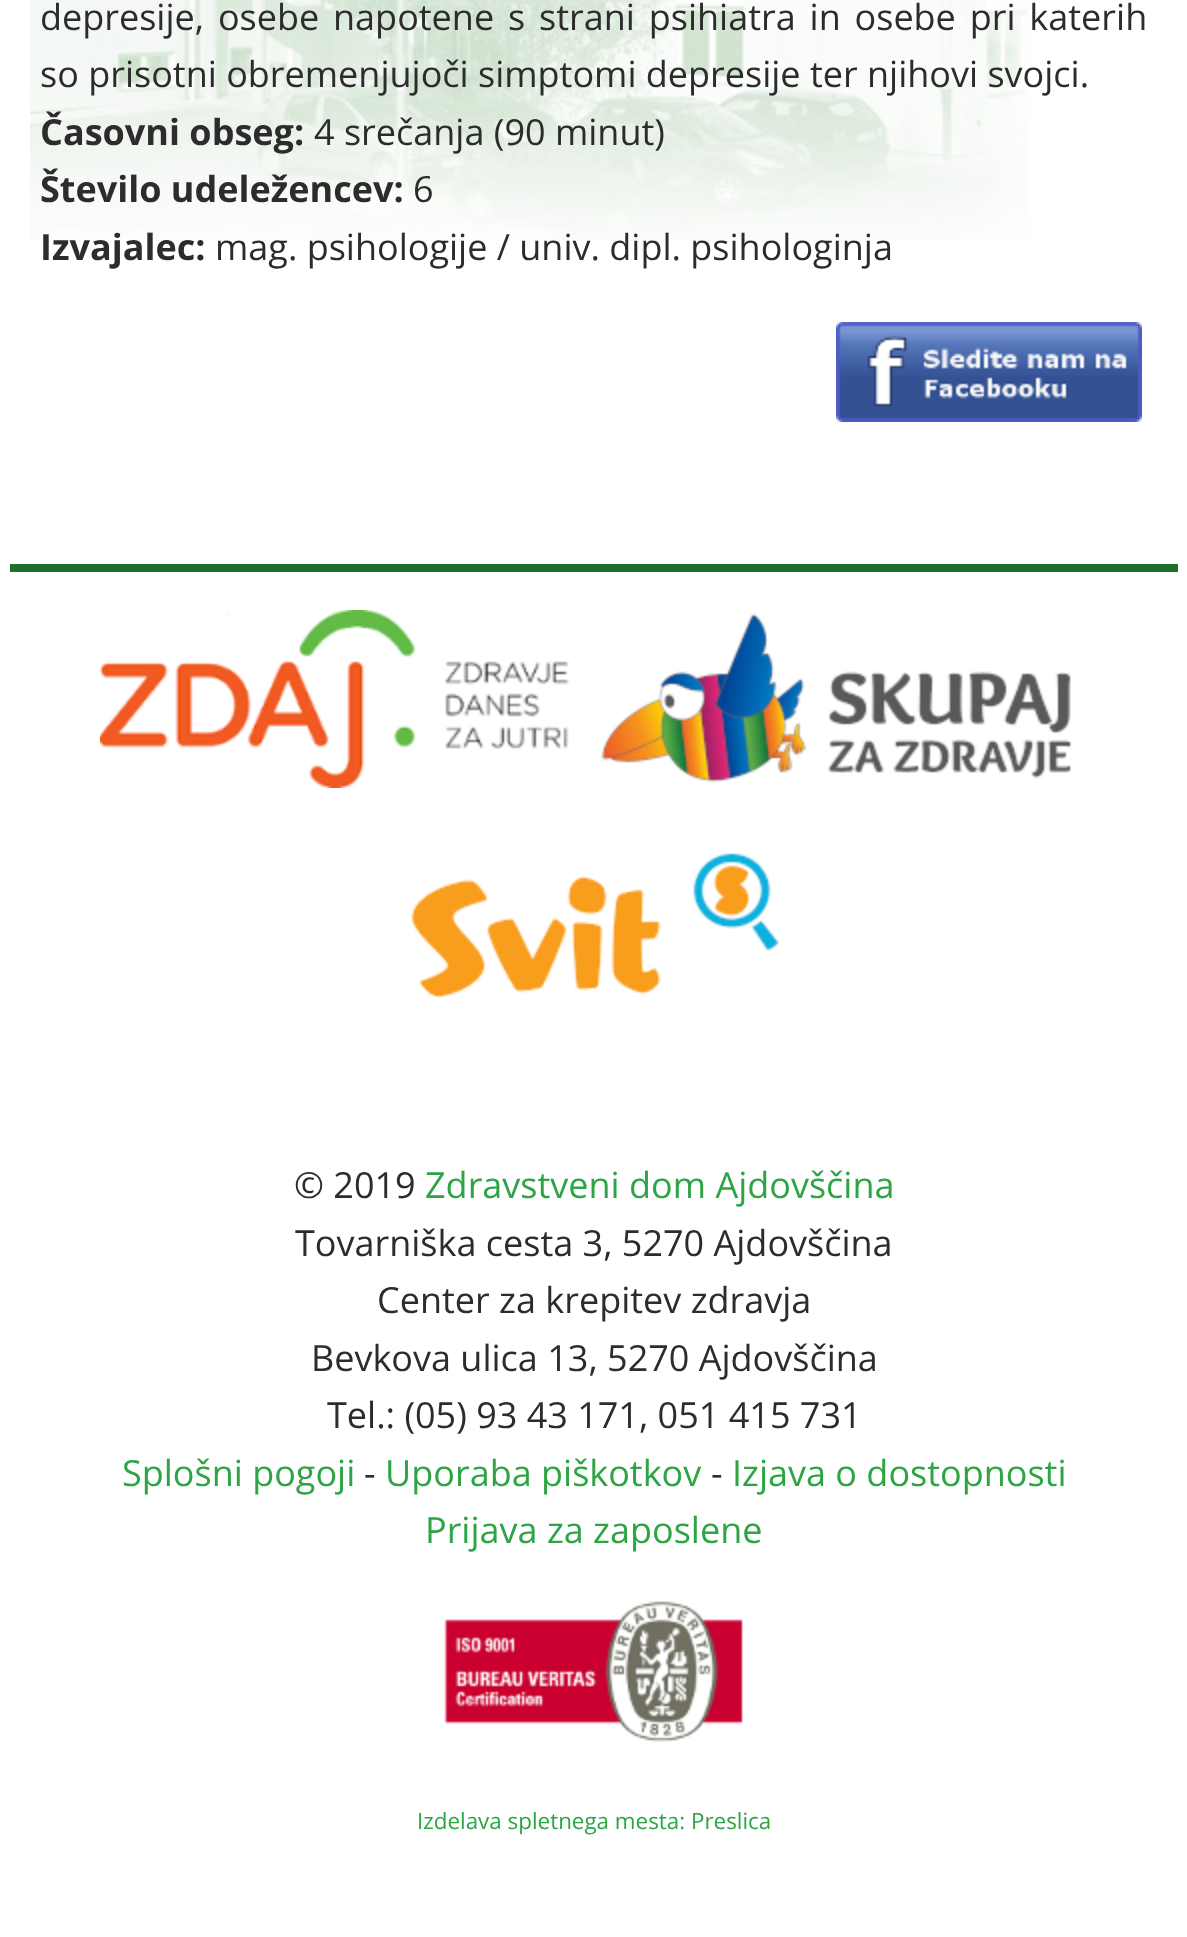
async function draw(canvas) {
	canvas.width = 1187;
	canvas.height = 1937;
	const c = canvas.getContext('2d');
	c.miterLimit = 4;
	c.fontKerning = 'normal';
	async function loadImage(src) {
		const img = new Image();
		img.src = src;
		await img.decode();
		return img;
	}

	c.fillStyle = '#fff';
	c.fillRect(0, 0, 1187, 1937);
	c.drawImage(await loadImage('img1.png'), 30, 0, 999, 241);
	c.wordSpacing = '4.5px';
	c.font = '36px Open Sans';
	c.fillStyle = '#2c2c2c';
	c.fillText('depresije, osebe napotene s strani psihiatra in osebe pri katerih', 40, 30);
	c.wordSpacing = '0px';
	c.fillText('so prisotni obremenjujoči simptomi depresije ter njihovi svojci.', 40, 87);
	c.font = 'bold 36px Open Sans';
	c.fillText('Časovni obseg:', 40, 145);
	c.font = '36px Open Sans';
	c.fillText('4 srečanja (90 minut)', 314, 145);
	c.font = 'bold 36px Open Sans';
	c.fillText('Število udeležencev:', 40, 202);
	c.font = '36px Open Sans';
	c.fillText('6', 413, 202);
	c.font = 'bold 36px Open Sans';
	c.fillText('Izvajalec:', 40, 260);
	c.font = '36px Open Sans';
	c.fillText('mag. psihologije / univ. dipl. psihologinja', 215, 260);
	c.drawImage(await loadImage('img2.png'), 836, 322, 306, 100);
	c.fillStyle = '#1c702c';
	c.fillRect(10, 564, 1168, 8);
	c.drawImage(await loadImage('img3.png'), 100, 610, 469, 178);
	c.drawImage(await loadImage('img4.png'), 601, 613, 472, 170);
	c.drawImage(await loadImage('img5.png'), 411, 853, 369, 146);
	c.fillStyle = '#2c2c2c';
	c.fillText('© 2019', 294, 1198);
	c.fillStyle = '#2da544';
	c.fillText('Zdravstveni dom Ajdovščina', 425, 1198);
	c.fillStyle = '#2c2c2c';
	for (const [text, x, y] of [
		['Tovarniška cesta 3, 5270 Ajdovščina', 295, 1256],
		['Center za krepitev zdravja', 377, 1313],
		['Bevkova ulica 13, 5270 Ajdovščina', 311, 1371],
		['Tel.: (05) 93 43 171, 051 415 731', 327, 1428],
	]) {
		c.fillText(text, x, y);
	}
	c.fillStyle = '#2da544';
	c.fillText('Splošni pogoji', 122, 1486);
	c.fillStyle = '#2c2c2c';
	c.fillText('-', 364, 1486);
	c.fillStyle = '#2da544';
	c.fillText('Uporaba piškotkov', 385, 1486);
	c.fillStyle = '#2c2c2c';
	c.fillText('-', 711, 1486);
	c.fillStyle = '#2da544';
	c.fillText('Izjava o dostopnosti', 732, 1486);
	c.fillText('Prijava za zaposlene', 425, 1543);
	c.drawImage(await loadImage('img6.png'), 444, 1601, 299, 141);
	c.font = '22.4px Open Sans';
	c.fillText('Izdelava spletnega mesta: Preslica', 417, 1829);
}

draw(document.querySelector('canvas'));
